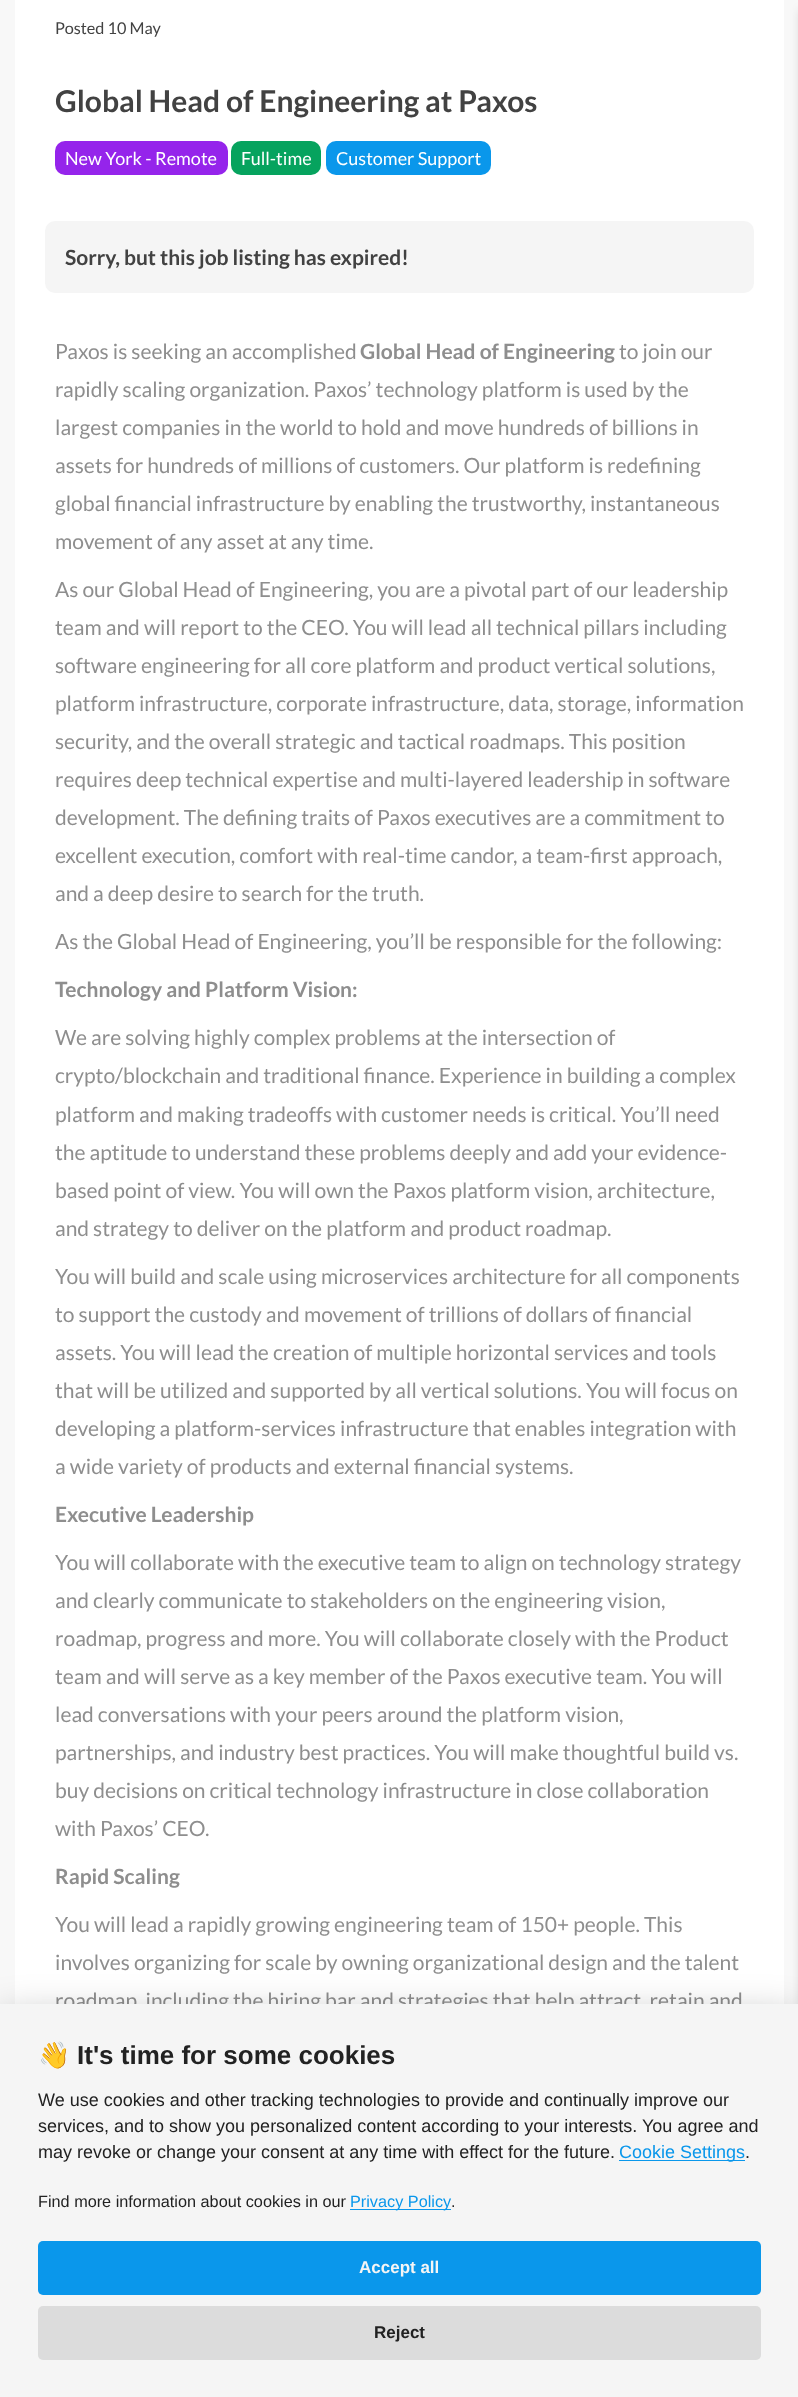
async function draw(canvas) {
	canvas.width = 798;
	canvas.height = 2397;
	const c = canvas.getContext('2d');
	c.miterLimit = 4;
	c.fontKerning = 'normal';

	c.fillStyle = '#f8f8f8';
	c.fillRect(0, 0, 798, 2397);
	c.fillStyle = '#fff';
	c.fillRect(15, 0, 769, 2004);
	c.font = '16.25px Lato';
	c.fillStyle = '#424242';
	c.fillText('Posted 10 May', 55, 34);
	c.font = 'bold 30px Lato';
	c.fillText('Global Head of Engineering at Paxos', 55, 112);
	c.fillStyle = '#9524eb';
	c.beginPath();
	c.roundRect(55, 141, 173, 34, 10);
	c.fill();
	c.font = '18px Lato';
	c.fillStyle = '#fff';
	c.fillText('New York - Remote', 65, 165);
	c.fillStyle = '#06a35e';
	c.beginPath();
	c.roundRect(231, 141, 90, 34, 10);
	c.fill();
	c.fillStyle = '#fff';
	c.fillText('Full-time', 241, 165);
	c.fillStyle = '#0a97eb';
	c.beginPath();
	c.roundRect(326, 141, 165, 34, 10);
	c.fill();
	c.fillStyle = '#fff';
	c.fillText('Customer Support', 336, 165);
	c.fillStyle = '#f5f5f5';
	c.beginPath();
	c.roundRect(45, 221, 709, 72, 10);
	c.fill();
	c.font = 'bold 21px Lato';
	c.fillStyle = '#424242';
	c.fillText('Sorry, but this job listing has expired!', 65, 265);
	c.font = '21px Lato';
	c.fillStyle = '#8e8e8e';
	c.fillText('Paxos is seeking an accomplished', 55, 359);
	c.font = 'bold 21px Lato';
	c.fillText('Global Head of Engineering', 360, 359);
	c.font = '21px Lato';
	for (const [text, x, y] of [
		['to join our', 619, 359],
		['rapidly scaling organization. Paxos’ technology platform is used by the', 55, 397],
		['largest companies in the world to hold and move hundreds of billions in', 55, 435],
		['assets for hundreds of millions of customers. Our platform is redefining', 55, 473],
		['global financial infrastructure by enabling the trustworthy, instantaneous', 55, 511],
		['movement of any asset at any time.', 55, 549],
		['As our Global Head of Engineering, you are a pivotal part of our leadership', 55, 597],
		['team and will report to the CEO. You will lead all technical pillars including', 55, 635],
		['software engineering for all core platform and product vertical solutions,', 55, 673],
		['platform infrastructure, corporate infrastructure, data, storage, information', 55, 711],
		['security, and the overall strategic and tactical roadmaps. This position', 55, 749],
		['requires deep technical expertise and multi-layered leadership in software', 55, 787],
		['development. The defining traits of Paxos executives are a commitment to', 55, 825],
		['excellent execution, comfort with real-time candor, a team-first approach,', 55, 863],
		['and a deep desire to search for the truth.', 55, 901],
		['As the Global Head of Engineering, you’ll be responsible for the following:', 55, 949],
	]) {
		c.fillText(text, x, y);
	}
	c.font = 'bold 21px Lato';
	c.fillText('Technology and Platform Vision:', 55, 997);
	c.font = '21px Lato';
	for (const [text, x, y] of [
		['We are solving highly complex problems at the intersection of', 55, 1045],
		['crypto/blockchain and traditional finance. Experience in building a complex', 55, 1083],
		['platform and making tradeoffs with customer needs is critical. You’ll need', 55, 1122],
		['the aptitude to understand these problems deeply and add your evidence-', 55, 1160],
		['based point of view. You will own the Paxos platform vision, architecture,', 55, 1198],
		['and strategy to deliver on the platform and product roadmap.', 55, 1236],
		['You will build and scale using microservices architecture for all components', 55, 1284],
		['to support the custody and movement of trillions of dollars of financial', 55, 1322],
		['assets. You will lead the creation of multiple horizontal services and tools', 55, 1360],
		['that will be utilized and supported by all vertical solutions. You will focus on', 55, 1398],
		['developing a platform-services infrastructure that enables integration with', 55, 1436],
		['a wide variety of products and external financial systems.', 55, 1474],
	]) {
		c.fillText(text, x, y);
	}
	c.font = 'bold 21px Lato';
	c.fillText('Executive Leadership', 55, 1522);
	c.font = '21px Lato';
	for (const [text, x, y] of [
		['You will collaborate with the executive team to align on technology strategy', 55, 1570],
		['and clearly communicate to stakeholders on the engineering vision,', 55, 1608],
		['roadmap, progress and more. You will collaborate closely with the Product', 55, 1646],
		['team and will serve as a key member of the Paxos executive team. You will', 55, 1684],
		['lead conversations with your peers around the platform vision,', 55, 1722],
		['partnerships, and industry best practices. You will make thoughtful build vs.', 55, 1760],
		['buy decisions on critical technology infrastructure in close collaboration', 55, 1798],
		['with Paxos’ CEO.', 55, 1836],
	]) {
		c.fillText(text, x, y);
	}
	c.font = 'bold 21px Lato';
	c.fillText('Rapid Scaling', 55, 1884);
	c.font = '21px Lato';
	for (const [text, x, y] of [
		['You will lead a rapidly growing engineering team of 150+ people. This', 55, 1932],
		['involves organizing for scale by owning organizational design and the talent', 55, 1970],
		['roadmap, including the hiring bar and strategies that help attract, retain and', 55, 2008],
	]) {
		c.fillText(text, x, y);
	}
	c.fillStyle = '#0000001f';
	c.filter = 'blur(5px)';
	c.beginPath();
	c.rect(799, 10, 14, 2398);
	c.fill();
	c.filter = 'none';
	c.fillStyle = '#02020347';
	c.filter = 'blur(19px)';
	c.beginPath();
	c.rect(0, 2016, 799, 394);
	c.fill();
	c.filter = 'none';
	c.fillStyle = '#f5f5f5';
	c.fillRect(0, 2004, 798, 393);
	c.font = 'bold 26px Noto Color Emoji';
	c.fillStyle = '#222';
	c.fillText('👋', 38, 2064);
	c.font = 'bold 26px Liberation Sans';
	c.fillText('It\'s time for some cookies', 77, 2064);
	c.font = '18px Liberation Sans';
	for (const [text, x, y] of [
		['We use cookies and other tracking technologies to provide and continually improve our', 38, 2106],
		['services, and to show you personalized content according to your interests. You agree and', 38, 2132],
		['may revoke or change your consent at any time with effect for the future.', 38, 2158],
	]) {
		c.fillText(text, x, y);
	}
	c.fillStyle = '#0a97eb';
	c.fillRect(619, 2160, 126, 1);
	c.fillText('Cookie Settings', 619, 2158);
	c.fillStyle = '#222';
	c.fillText('.', 745, 2158);
	c.font = '16.25px Liberation Sans';
	c.fillText('Find more information about cookies in our', 38, 2207);
	c.fillStyle = '#0a97eb';
	c.fillRect(350, 2209, 101, 1);
	c.fillText('Privacy Policy', 350, 2207);
	c.fillStyle = '#222';
	c.fillText('.', 451, 2207);
	c.fillStyle = '#0a97eb';
	c.beginPath();
	c.roundRect(38, 2241, 723, 54, 5);
	c.fill();
	c.font = 'bold 17px Liberation Sans';
	c.fillStyle = '#f5f5f5';
	c.fillText('Accept all', 359, 2273);
	c.fillStyle = '#dcdcdc';
	c.beginPath();
	c.roundRect(38, 2306, 723, 54, 5);
	c.fill();
	c.fillStyle = '#222';
	c.fillText('Reject', 374, 2338);
}

draw(document.querySelector('canvas'));
